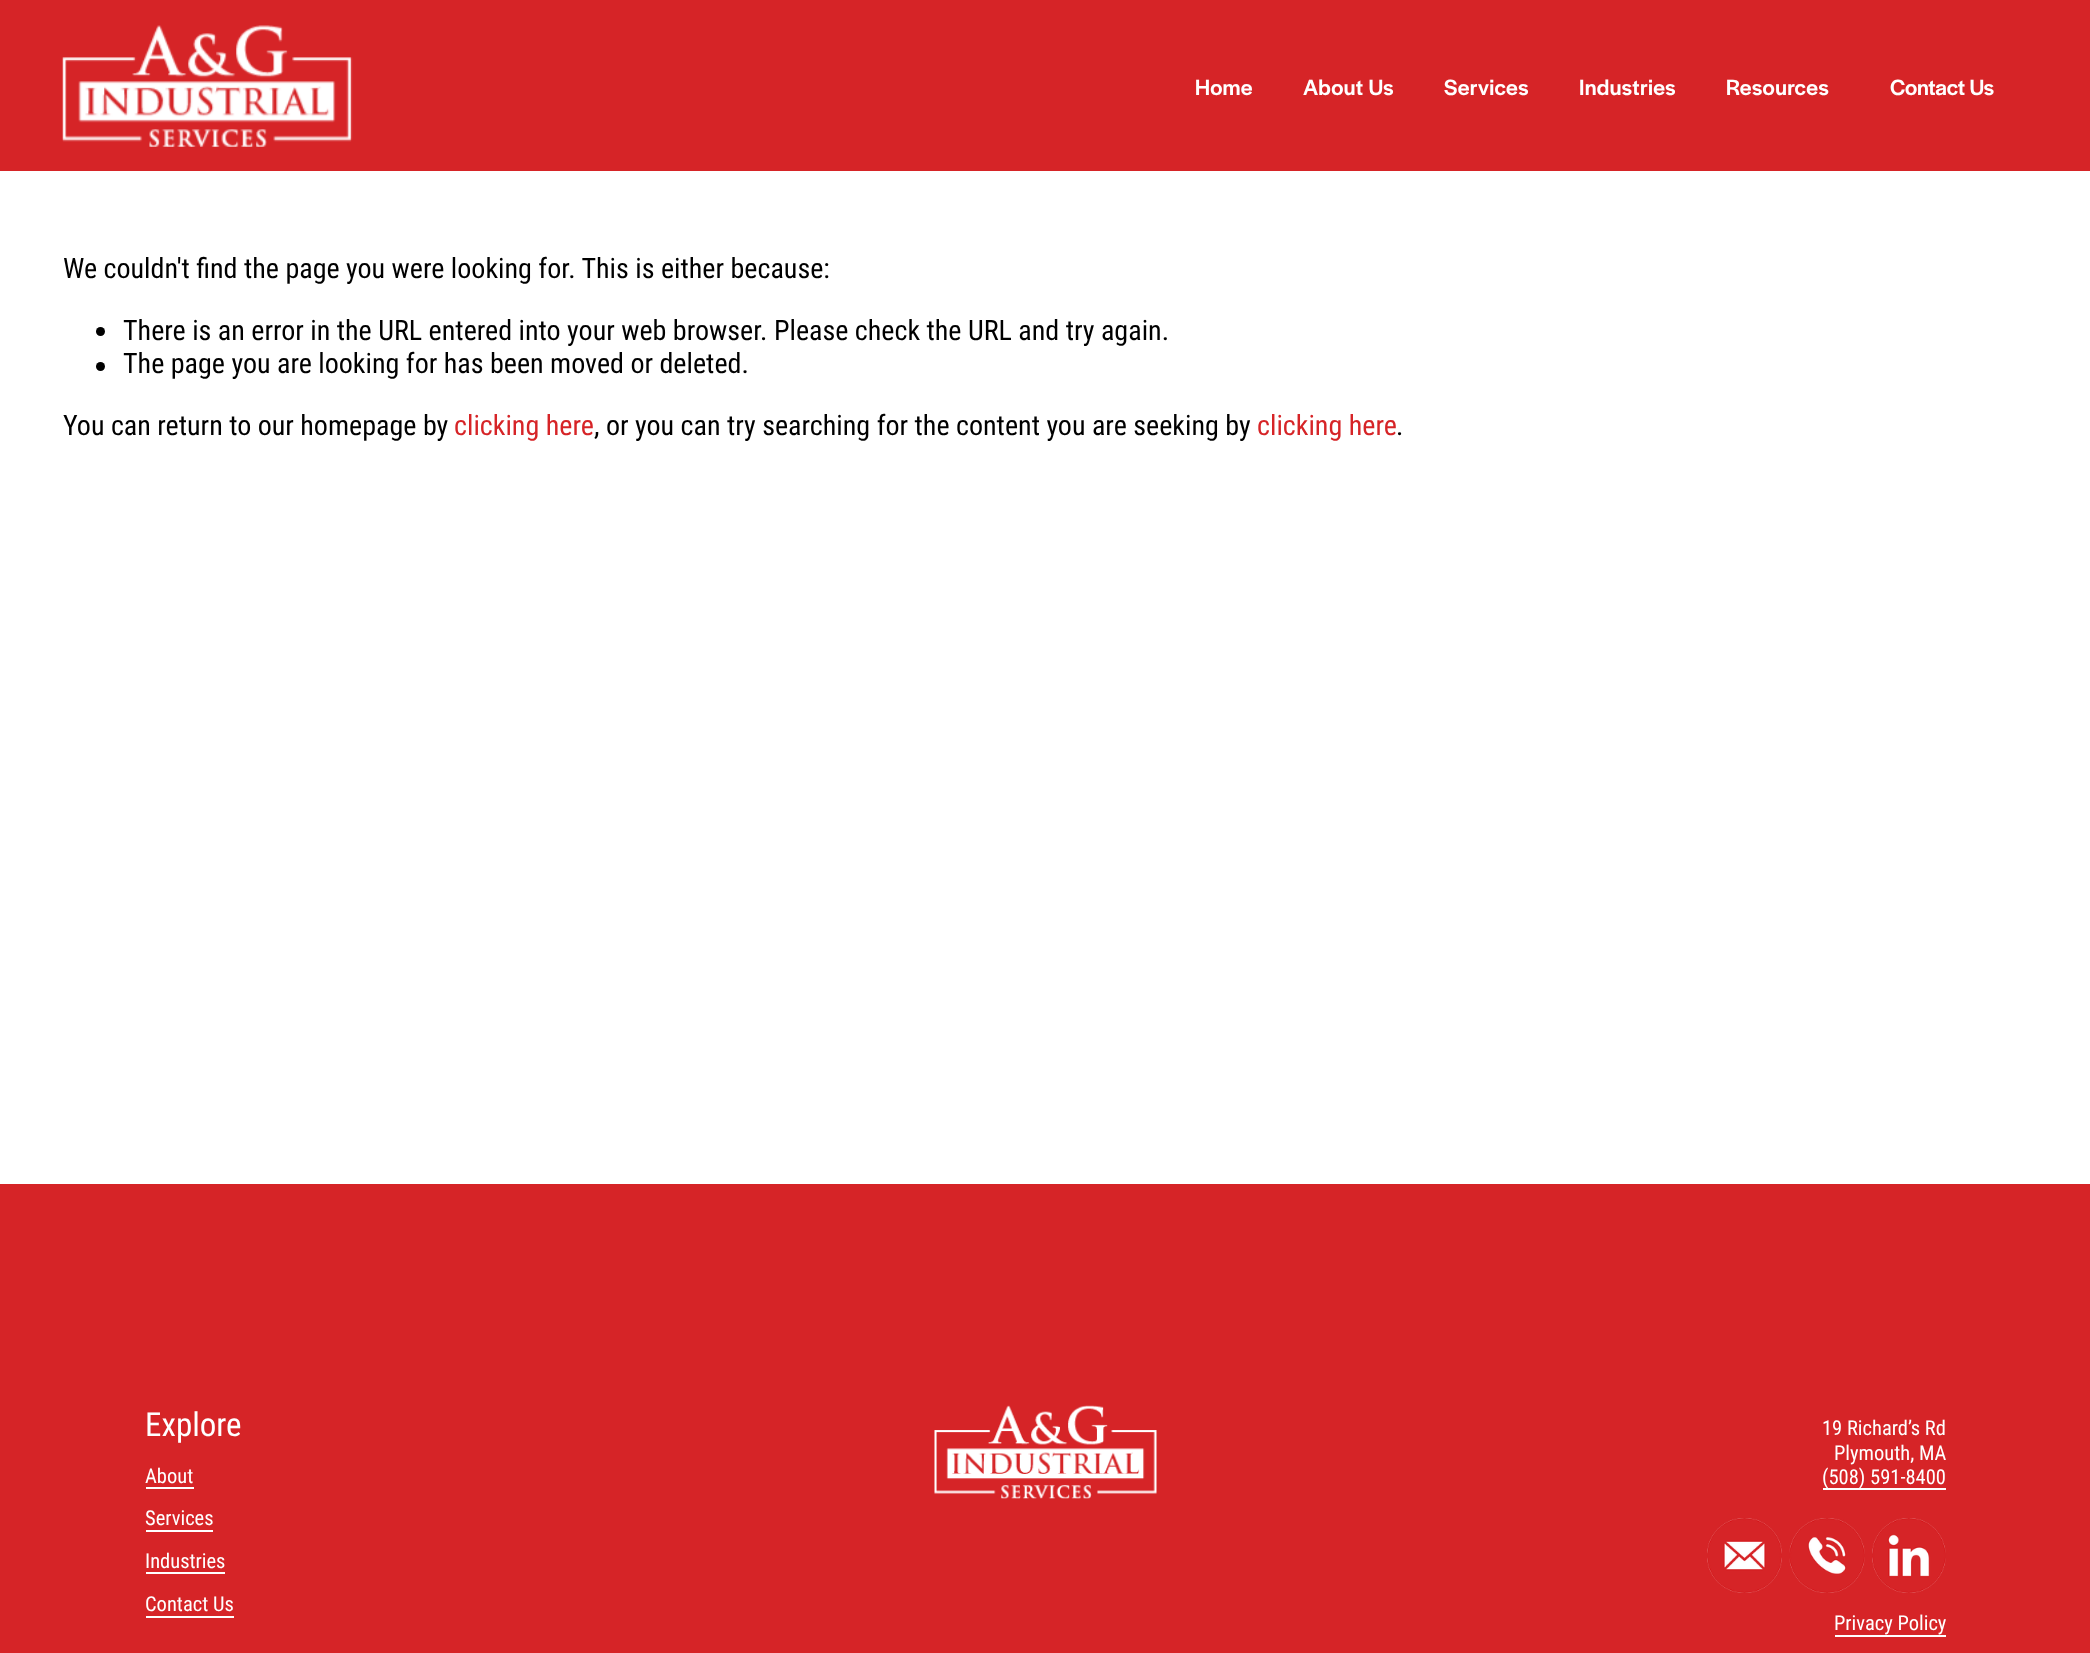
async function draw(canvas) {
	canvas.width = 2090;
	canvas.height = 1653;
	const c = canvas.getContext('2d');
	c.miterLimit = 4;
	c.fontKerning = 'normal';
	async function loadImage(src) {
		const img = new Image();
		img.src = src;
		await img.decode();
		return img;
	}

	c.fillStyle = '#fff';
	c.fillRect(0, 0, 2090, 1653);
	c.fillStyle = '#d62427';
	c.fillRect(0, 0, 2090, 171);
	c.drawImage(await loadImage('img1.png'), 62, 25, 291, 122);
	c.letterSpacing = '0.5px';
	c.font = '500 23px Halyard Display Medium';
	c.fillStyle = '#fff';
	for (const [text, x, y] of [
		['Home', 1195, 95],
		['About Us', 1303, 95],
		['Services', 1444, 95],
		['Industries', 1579, 95],
		['Resources', 1726, 95],
	]) {
		c.fillText(text, x, y);
	}
	c.letterSpacing = '0px';
	c.fillText('Contact Us', 1890, 95);
	c.font = '28.05px Roboto Condensed';
	c.fillStyle = '#000';
	c.fillText('We couldn\'t find the page you were looking for. This is either because:', 63, 278);
	c.beginPath();
	c.arc(100.5, 331.5, 4.5, 0, 2 * Math.PI);
	c.fill();
	c.fillText('There is an error in the URL entered into your web browser. Please check the URL and try again.', 123, 340);
	c.beginPath();
	c.arc(100.5, 366.5, 4.5, 0, 2 * Math.PI);
	c.fill();
	c.fillText('The page you are looking for has been moved or deleted.', 123, 373);
	c.fillText('You can return to our homepage by', 63, 435);
	c.fillStyle = '#d62427';
	c.fillText('clicking here', 454, 435);
	c.fillStyle = '#000';
	c.fillText(', or you can try searching for the content you are seeking by', 594, 435);
	c.fillStyle = '#d62427';
	c.fillText('clicking here', 1257, 435);
	c.fillStyle = '#000';
	c.fillText('.', 1396, 435);
	c.fillStyle = '#d62427';
	c.fillRect(0, 1184, 2090, 469);
	c.font = '33px Roboto Condensed';
	c.fillStyle = '#fff';
	c.fillText('Explore', 145, 1436);
	c.font = '20.5px Roboto Condensed';
	c.fillText('About', 145, 1483);
	c.fillRect(146, 1487, 48, 2);
	c.fillText('Services', 145, 1525);
	c.fillRect(146, 1530, 67, 2);
	c.fillText('Industries', 145, 1568);
	c.fillRect(146, 1572, 79, 2);
	c.fillText('Contact Us', 145, 1611);
	c.fillRect(146, 1616, 88, 2);
	c.drawImage(await loadImage('img2.png'), 934, 1405, 223, 94);
	c.fillText('19 Richard’s Rd', 1822, 1435);
	c.fillText('Plymouth, MA', 1834, 1460);
	c.fillRect(1823, 1488, 123, 2);
	c.fillText('(508) 591-8400', 1822, 1484);
	c.drawImage(await loadImage('img3.png'), 1707, 1518, 75, 75);
	c.drawImage(await loadImage('img4.png'), 1789, 1518, 76, 75);
	c.drawImage(await loadImage('img5.png'), 1872, 1518, 74, 75);
	c.fillText('Privacy Policy', 1834, 1630);
	c.fillRect(1835, 1635, 111, 2);
}

draw(document.querySelector('canvas'));
